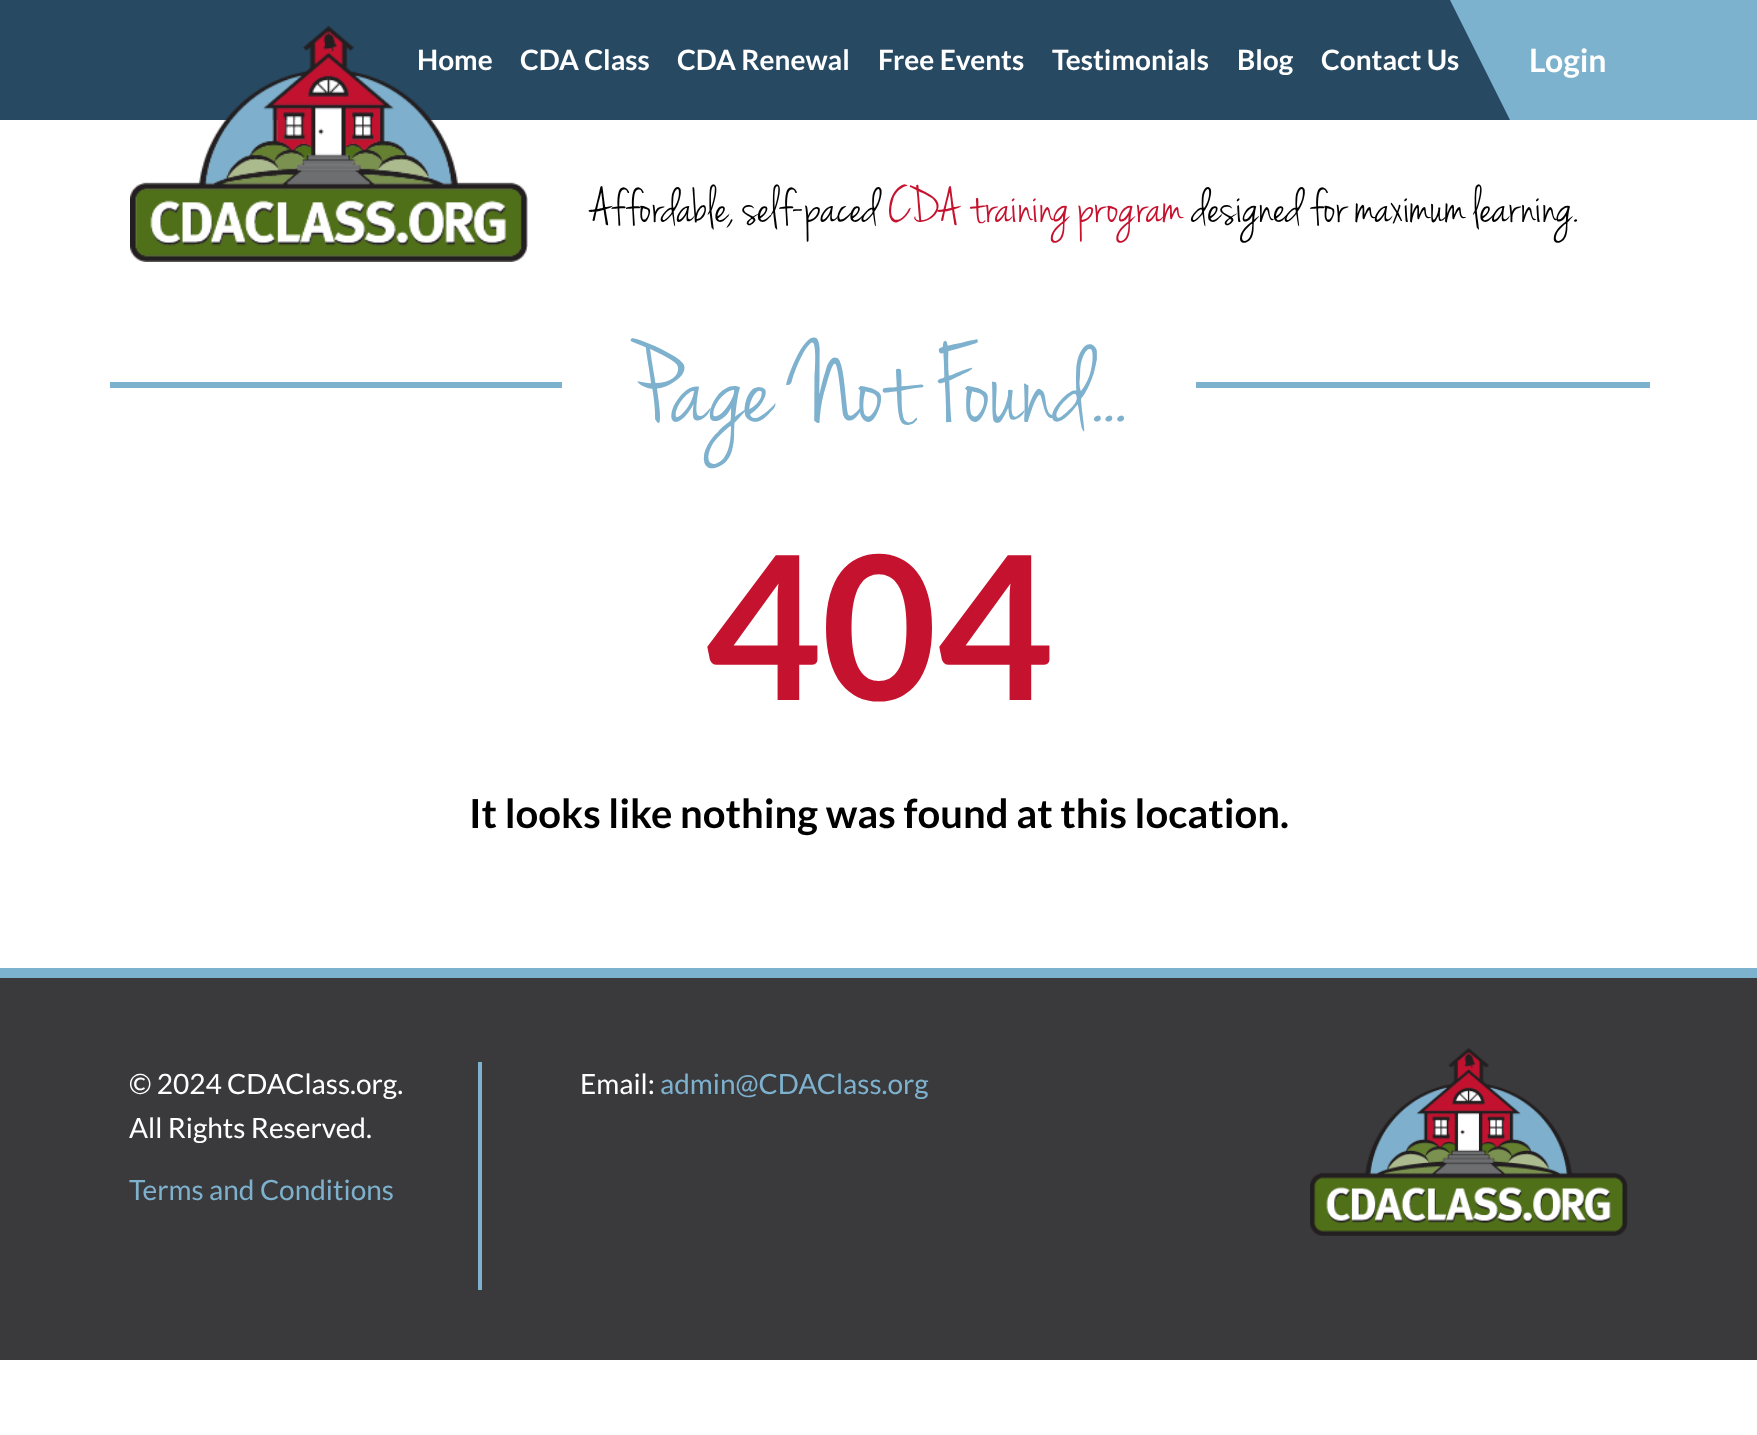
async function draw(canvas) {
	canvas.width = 1757;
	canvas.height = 1435;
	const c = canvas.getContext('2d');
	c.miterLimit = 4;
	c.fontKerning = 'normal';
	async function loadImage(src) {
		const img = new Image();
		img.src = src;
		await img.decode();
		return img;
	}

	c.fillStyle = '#fff';
	c.fillRect(0, 0, 1757, 1435);
	c.fillStyle = '#274962';
	c.fillRect(0, 0, 1510, 120);
	c.font = 'bold 28px Lato';
	c.fillStyle = '#fff';
	for (const [text, x, y] of [
		['Home', 417, 70],
		['CDA Class', 520, 70],
		['CDA Renewal', 677, 70],
		['Free Events', 878, 70],
		['Testimonials', 1052, 70],
		['Blog', 1237, 70],
		['Contact Us', 1321, 70],
	]) {
		c.fillText(text, x, y);
	}
	c.fillStyle = '#7cb2ce';
	c.fillRect(1510, 0, 247, 120);
	c.beginPath();
	c.moveTo(1450, 0);
	c.lineTo(1510, 0);
	c.lineTo(1510, 120);
	c.closePath();
	c.fill();
	c.font = 'bold 32px Lato';
	c.fillStyle = '#fff';
	c.fillText('Login', 1529, 72);
	c.drawImage(await loadImage('img1.png'), 130, 26, 398, 236);
	c.font = '54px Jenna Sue';
	c.fillStyle = '#000';
	c.fillText('Affordable, self-paced', 590, 222);
	c.fillStyle = '#c5122f';
	c.fillText('CDA training program', 888, 222);
	c.fillStyle = '#000';
	c.fillText('designed for maximum learning.', 1192, 222);
	c.fillStyle = '#7cb2ce';
	c.fillRect(110, 382, 1540, 6);
	c.fillStyle = '#fff';
	c.fillRect(562, 382, 634, 6);
	c.font = '120px Jenna Sue';
	c.fillStyle = '#7eb1ce';
	c.fillText('Page Not Found...', 632, 422);
	c.font = 'bold 200px Lato';
	c.fillStyle = '#c5122f';
	c.fillText('404', 705, 700);
	c.font = 'bold 40px Lato';
	c.fillStyle = '#000';
	c.fillText('It looks like nothing was found at this location.', 469, 828);
	for (const [x, y, w, h, color] of [
		[0, 978, 1757, 382, '#3a3a3c'],
		[0, 968, 1757, 10, '#7cb2ce'],
		[478, 1062, 4, 228, '#7eb1ce'],
	]) {
		c.fillStyle = color;
		c.fillRect(x, y, w, h);
	}
	c.font = '28px Lato';
	c.fillStyle = '#fff';
	c.fillText('© 2024 CDAClass.org.', 129, 1094);
	c.fillText('All Rights Reserved.', 129, 1138);
	c.fillStyle = '#7eb1ce';
	c.fillText('Terms and Conditions', 129, 1200);
	c.fillStyle = '#fff';
	c.fillText('Email:', 580, 1094);
	c.fillStyle = '#7eb1ce';
	c.fillText('admin@CDAClass.org', 660, 1094);
	c.drawImage(await loadImage('img2.png'), 1310, 1048, 318, 188);
}

draw(document.querySelector('canvas'));
